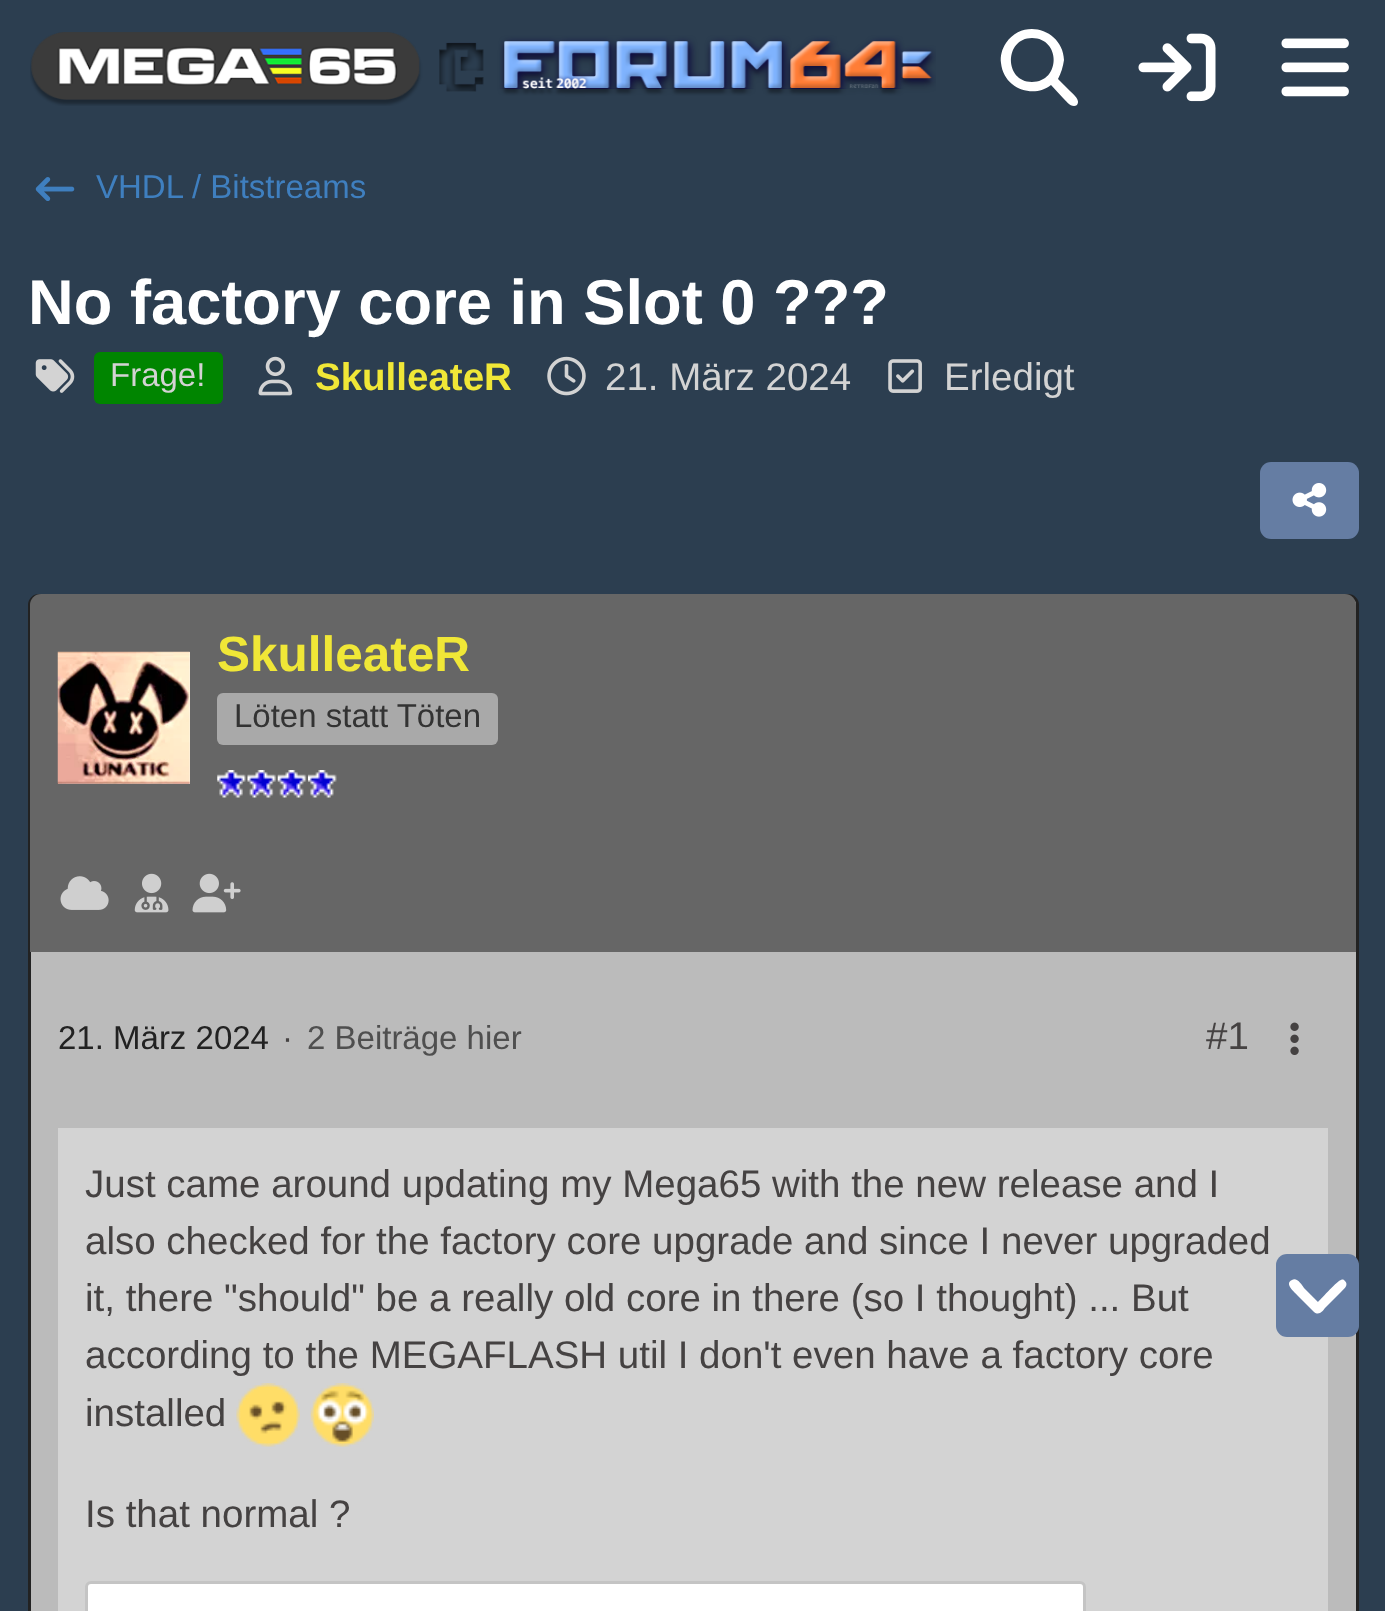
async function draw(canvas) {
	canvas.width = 1385;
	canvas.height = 1611;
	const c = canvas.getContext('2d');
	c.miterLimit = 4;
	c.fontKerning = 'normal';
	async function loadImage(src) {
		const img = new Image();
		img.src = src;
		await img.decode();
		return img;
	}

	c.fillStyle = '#2c3e50';
	c.fillRect(0, 0, 1385, 1611);
	c.drawImage(await loadImage('img1.png'), 30, 32, 906, 74);
	c.fillStyle = '#fff';
	c.beginPath();
	c.moveTo(1064, 60);
	c.bezierCurveTo(1063, 67, 1061, 73, 1058, 79);
	c.lineTo(1070, 91);
	c.bezierCurveTo(1073, 94, 1081, 100, 1077, 105);
	c.bezierCurveTo(1072, 109, 1066, 101, 1063, 98);
	c.lineTo(1051, 85);
	c.bezierCurveTo(1040, 94, 1023, 93, 1012, 84);
	c.bezierCurveTo(1006, 79, 1002, 72, 1001, 63);
	c.bezierCurveTo(1000, 56, 1002, 49, 1006, 43);
	c.bezierCurveTo(1024, 17, 1063, 30, 1064, 60);
	c.closePath();
	c.moveTo(1032, 82);
	c.bezierCurveTo(1061, 82, 1061, 38, 1032, 38);
	c.bezierCurveTo(1004, 38, 1004, 82, 1032, 82);
	c.closePath();
	c.fill();
	c.drawImage(await loadImage('img2.png'), 1138, 33, 78, 69);
	c.drawImage(await loadImage('img3.png'), 1281, 38, 68, 59);
	c.drawImage(await loadImage('img4.png'), 35, 177, 40, 24);
	c.font = '33px Liberation Sans';
	c.fillStyle = '#3f7fbf';
	c.fillText('VHDL / Bitstreams', 96, 198);
	c.font = 'bold 63.25px Liberation Sans';
	c.fillStyle = '#fff';
	c.fillText('No factory core in Slot 0 ???', 28, 324);
	c.drawImage(await loadImage('img5.png'), 35, 359, 40, 34);
	c.fillStyle = '#008500';
	c.beginPath();
	c.roundRect(94, 352, 129, 52, 6);
	c.fill();
	c.font = '33px Liberation Sans';
	c.fillStyle = '#d3d3d3';
	c.fillText('Frage!', 110, 386);
	c.drawImage(await loadImage('img6.png'), 258, 356, 35, 40);
	c.font = 'bold 38.5px Liberation Sans';
	c.fillStyle = '#f0e737';
	c.fillText('SkulleateR', 315, 390);
	c.drawImage(await loadImage('img7.png'), 547, 356, 39, 40);
	c.font = '38.5px Liberation Sans';
	c.fillStyle = '#d3d3d3';
	c.fillText('21. März 2024', 605, 390);
	c.drawImage(await loadImage('img8.png'), 888, 359, 34, 34);
	c.fillText('Erledigt', 944, 390);
	c.fillStyle = '#657da3';
	c.beginPath();
	c.roundRect(1260, 462, 99, 77, 11);
	c.fill();
	c.drawImage(await loadImage('img9.png'), 1292, 483, 35, 34);
	c.fillStyle = '#bbb';
	c.beginPath();
	c.roundRect(29.5, 595.5, 1328, 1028, 9.5);
	c.fill();
	c.strokeStyle = '#222';
	c.lineWidth = 3;
	c.stroke();
	c.fillStyle = '#666';
	c.beginPath();
	c.roundRect(30, 594, 1326, 358, [11, 11, 0, 0]);
	c.fill();
	c.fillStyle = '#fff';
	c.fillRect(58, 652, 132, 132);
	c.drawImage(await loadImage('img10.png'), 57, 651, 133, 133);
	c.font = 'bold 49.5px Liberation Sans';
	c.fillStyle = '#f0e737';
	c.fillText('SkulleateR', 217, 671);
	c.fillStyle = '#a9a9a9';
	c.beginPath();
	c.roundRect(217, 693, 281, 52, 6);
	c.fill();
	c.font = '33px Liberation Sans';
	c.fillStyle = '#333';
	c.fillText('Löten statt Töten', 234, 727);
	c.drawImage(await loadImage('img11.png'), 217, 770, 29, 28);
	c.drawImage(await loadImage('img12.png'), 247, 770, 29, 28);
	c.drawImage(await loadImage('img13.png'), 277, 770, 30, 28);
	c.drawImage(await loadImage('img14.png'), 308, 770, 29, 28);
	c.drawImage(await loadImage('img15.png'), 60, 876, 49, 34);
	c.drawImage(await loadImage('img16.png'), 134, 873, 35, 40);
	c.drawImage(await loadImage('img17.png'), 192, 873, 49, 40);
	c.fillStyle = '#222';
	c.fillText('21. März 2024', 58, 1049);
	c.fillStyle = '#454242';
	c.fillText('·', 282, 1049);
	c.fillStyle = '#4f4f4f';
	c.fillText('2 Beiträge hier', 307, 1049);
	c.font = '38.5px Liberation Sans';
	c.fillStyle = '#454242';
	c.fillText('#1', 1206, 1049);
	c.drawImage(await loadImage('img18.png'), 1290, 1022, 9, 33);
	c.fillStyle = '#d3d3d3';
	c.fillRect(58, 1128, 1270, 483);
	c.fillStyle = '#454242';
	for (const [text, x, y] of [
		['Just came around updating my Mega65 with the new release and I', 85, 1197],
		['also checked for the factory core upgrade and since I never upgraded', 85, 1254],
		['it, there "should" be a really old core in there (so I thought) ... But', 85, 1311],
		['according to the MEGAFLASH util I don\'t even have a factory core', 85, 1368],
		['installed', 85, 1426],
	]) {
		c.fillText(text, x, y);
	}
	c.drawImage(await loadImage('img19.png'), 236, 1383, 64, 64);
	c.drawImage(await loadImage('img20.png'), 310, 1383, 64, 64);
	c.fillText('Is that normal ?', 85, 1527);
	c.fillStyle = '#fff';
	c.beginPath();
	c.roundRect(86.5, 1582.5, 998, 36, 4.5);
	c.fill();
	c.strokeStyle = '#c4c4c4';
	c.stroke();
	c.fillStyle = '#657da3';
	c.beginPath();
	c.roundRect(1276, 1254, 83, 83, 11);
	c.fill();
	c.fillStyle = '#fff';
	c.beginPath();
	c.moveTo(1314, 1312);
	c.bezierCurveTo(1319, 1316, 1323, 1311, 1325, 1308);
	c.lineTo(1341, 1292);
	c.bezierCurveTo(1344, 1289, 1349, 1285, 1345, 1281);
	c.bezierCurveTo(1344, 1280, 1343, 1279, 1341, 1280);
	c.bezierCurveTo(1338, 1280, 1322, 1298, 1318, 1302);
	c.lineTo(1304, 1288);
	c.bezierCurveTo(1302, 1285, 1297, 1277, 1292, 1280);
	c.bezierCurveTo(1283, 1284, 1297, 1294, 1298, 1296);
	c.closePath();
	c.fill();
}

draw(document.querySelector('canvas'));
